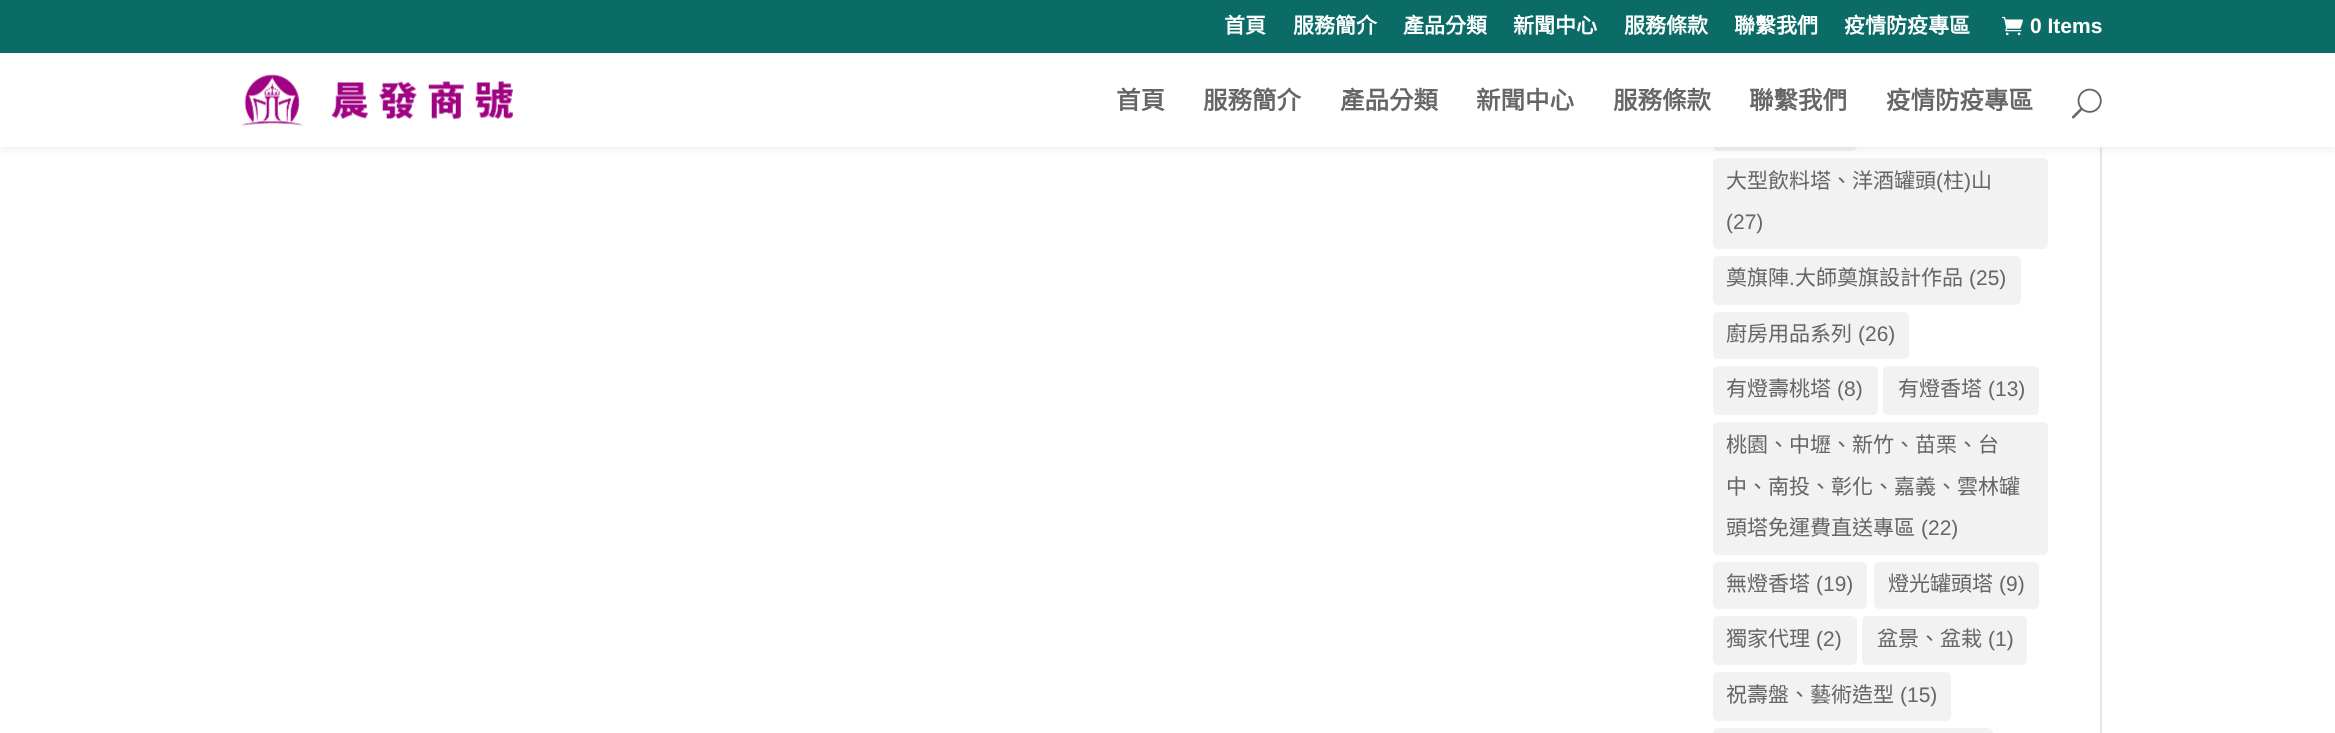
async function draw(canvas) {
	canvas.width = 2335;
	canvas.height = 733;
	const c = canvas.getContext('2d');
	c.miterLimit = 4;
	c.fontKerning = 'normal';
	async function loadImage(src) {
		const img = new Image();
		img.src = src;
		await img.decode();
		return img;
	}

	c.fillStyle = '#fff';
	c.fillRect(0, 0, 2335, 733);
	c.fillStyle = '#e6e6e6';
	c.fillRect(2100, 147, 2, 586);
	c.fillStyle = '#f2f2f2';
	c.beginPath();
	c.roundRect(1713, 102, 144, 49, 5);
	c.fill();
	c.beginPath();
	c.roundRect(1713, 158, 335, 91, 5);
	c.fill();
	c.fillStyle = '#0000001a';
	c.filter = 'blur(6px)';
	c.beginPath();
	c.rect(0, 53, 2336, 94);
	c.fill();
	c.filter = 'none';
	c.fillStyle = '#0b6c67';
	c.fillRect(0, 0, 2335, 53);
	c.font = 'bold 21px Noto Sans CJK TC';
	c.fillStyle = '#fff';
	for (const [text, x, y] of [
		['首頁', 1224, 33],
		['服務簡介', 1293, 33],
		['產品分類', 1403, 33],
		['新聞中心', 1513, 33],
		['服務條款', 1624, 33],
		['聯繫我們', 1734, 33],
		['疫情防疫專區', 1844, 33],
	]) {
		c.fillText(text, x, y);
	}
	c.drawImage(await loadImage('img1.png'), 2002, 16, 21, 20);
	c.font = 'bold 21px Liberation Sans';
	c.fillText('0 Items', 2030, 33);
	c.fillRect(0, 53, 2335, 94);
	c.drawImage(await loadImage('img2.png'), 241, 74, 273, 52);
	c.font = 'bold 24.5px Noto Sans CJK TC';
	c.fillStyle = '#666';
	for (const [text, x, y] of [
		['首頁', 1116, 109],
		['服務簡介', 1203, 109],
		['產品分類', 1340, 109],
		['新聞中心', 1476, 109],
		['服務條款', 1613, 109],
		['聯繫我們', 1749, 109],
		['疫情防疫專區', 1886, 109],
	]) {
		c.fillText(text, x, y);
	}
	c.drawImage(await loadImage('img3.png'), 2071, 88, 31, 31);
	c.font = '21px Noto Sans CJK TC';
	c.fillText('大型飲料塔、洋酒罐頭', 1726, 188);
	c.font = '21px Liberation Sans';
	c.fillText('(', 1936, 188);
	c.font = '21px Noto Sans CJK TC';
	c.fillText('柱', 1943, 188);
	c.font = '21px Liberation Sans';
	c.fillText(')', 1964, 188);
	c.font = '21px Noto Sans CJK TC';
	c.fillText('山', 1971, 188);
	c.font = '21px Liberation Sans';
	c.fillText('(27)', 1726, 229);
	c.fillStyle = '#f2f2f2';
	c.beginPath();
	c.roundRect(1713, 256, 308, 49, 5);
	c.fill();
	c.font = '21px Noto Sans CJK TC';
	c.fillStyle = '#666';
	c.fillText('奠旗陣', 1726, 285);
	c.font = '21px Liberation Sans';
	c.fillText('.', 1789, 285);
	c.font = '21px Noto Sans CJK TC';
	c.fillText('大師奠旗設計作品', 1795, 285);
	c.font = '21px Liberation Sans';
	c.fillText('(25)', 1969, 285);
	c.fillStyle = '#f2f2f2';
	c.beginPath();
	c.roundRect(1713, 312, 196, 47, 5);
	c.fill();
	c.font = '21px Noto Sans CJK TC';
	c.fillStyle = '#666';
	c.fillText('廚房用品系列', 1726, 341);
	c.font = '21px Liberation Sans';
	c.fillText('(26)', 1858, 341);
	c.fillStyle = '#f2f2f2';
	c.beginPath();
	c.roundRect(1713, 366, 165, 49, 5);
	c.fill();
	c.font = '21px Noto Sans CJK TC';
	c.fillStyle = '#666';
	c.fillText('有燈壽桃塔', 1726, 396);
	c.font = '21px Liberation Sans';
	c.fillText('(8)', 1837, 396);
	c.fillStyle = '#f2f2f2';
	c.beginPath();
	c.roundRect(1883, 366, 156, 49, 5);
	c.fill();
	c.font = '21px Noto Sans CJK TC';
	c.fillStyle = '#666';
	c.fillText('有燈香塔', 1898, 396);
	c.font = '21px Liberation Sans';
	c.fillText('(13)', 1988, 396);
	c.fillStyle = '#f2f2f2';
	c.beginPath();
	c.roundRect(1713, 422, 335, 133, 5);
	c.fill();
	c.font = '21px Noto Sans CJK TC';
	c.fillStyle = '#666';
	for (const [text, x, y] of [
		['桃園、中壢、新竹、苗栗、台', 1726, 452],
		['中、南投、彰化、嘉義、雲林罐', 1726, 494],
		['頭塔免運費直送專區', 1726, 535],
	]) {
		c.fillText(text, x, y);
	}
	c.font = '21px Liberation Sans';
	c.fillText('(22)', 1921, 535);
	c.fillStyle = '#f2f2f2';
	c.beginPath();
	c.roundRect(1713, 562, 154, 47, 5);
	c.fill();
	c.font = '21px Noto Sans CJK TC';
	c.fillStyle = '#666';
	c.fillText('無燈香塔', 1726, 591);
	c.font = '21px Liberation Sans';
	c.fillText('(19)', 1816, 591);
	c.fillStyle = '#f2f2f2';
	c.beginPath();
	c.roundRect(1874, 562, 165, 47, 5);
	c.fill();
	c.font = '21px Noto Sans CJK TC';
	c.fillStyle = '#666';
	c.fillText('燈光罐頭塔', 1888, 591);
	c.font = '21px Liberation Sans';
	c.fillText('(9)', 1999, 591);
	c.fillStyle = '#f2f2f2';
	c.beginPath();
	c.roundRect(1713, 616, 144, 49, 5);
	c.fill();
	c.font = '21px Noto Sans CJK TC';
	c.fillStyle = '#666';
	c.fillText('獨家代理', 1726, 646);
	c.font = '21px Liberation Sans';
	c.fillText('(2)', 1816, 646);
	c.fillStyle = '#f2f2f2';
	c.beginPath();
	c.roundRect(1862, 616, 165, 49, 5);
	c.fill();
	c.font = '21px Noto Sans CJK TC';
	c.fillStyle = '#666';
	c.fillText('盆景、盆栽', 1877, 646);
	c.font = '21px Liberation Sans';
	c.fillText('(1)', 1988, 646);
	c.fillStyle = '#f2f2f2';
	c.beginPath();
	c.roundRect(1713, 672, 238, 49, 5);
	c.fill();
	c.font = '21px Noto Sans CJK TC';
	c.fillStyle = '#666';
	c.fillText('祝壽盤、藝術造型', 1726, 702);
	c.font = '21px Liberation Sans';
	c.fillText('(15)', 1900, 702);
	c.fillStyle = '#f2f2f2';
	c.beginPath();
	c.roundRect(1713, 728, 280, 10, 5);
	c.fill();
}

draw(document.querySelector('canvas'));
